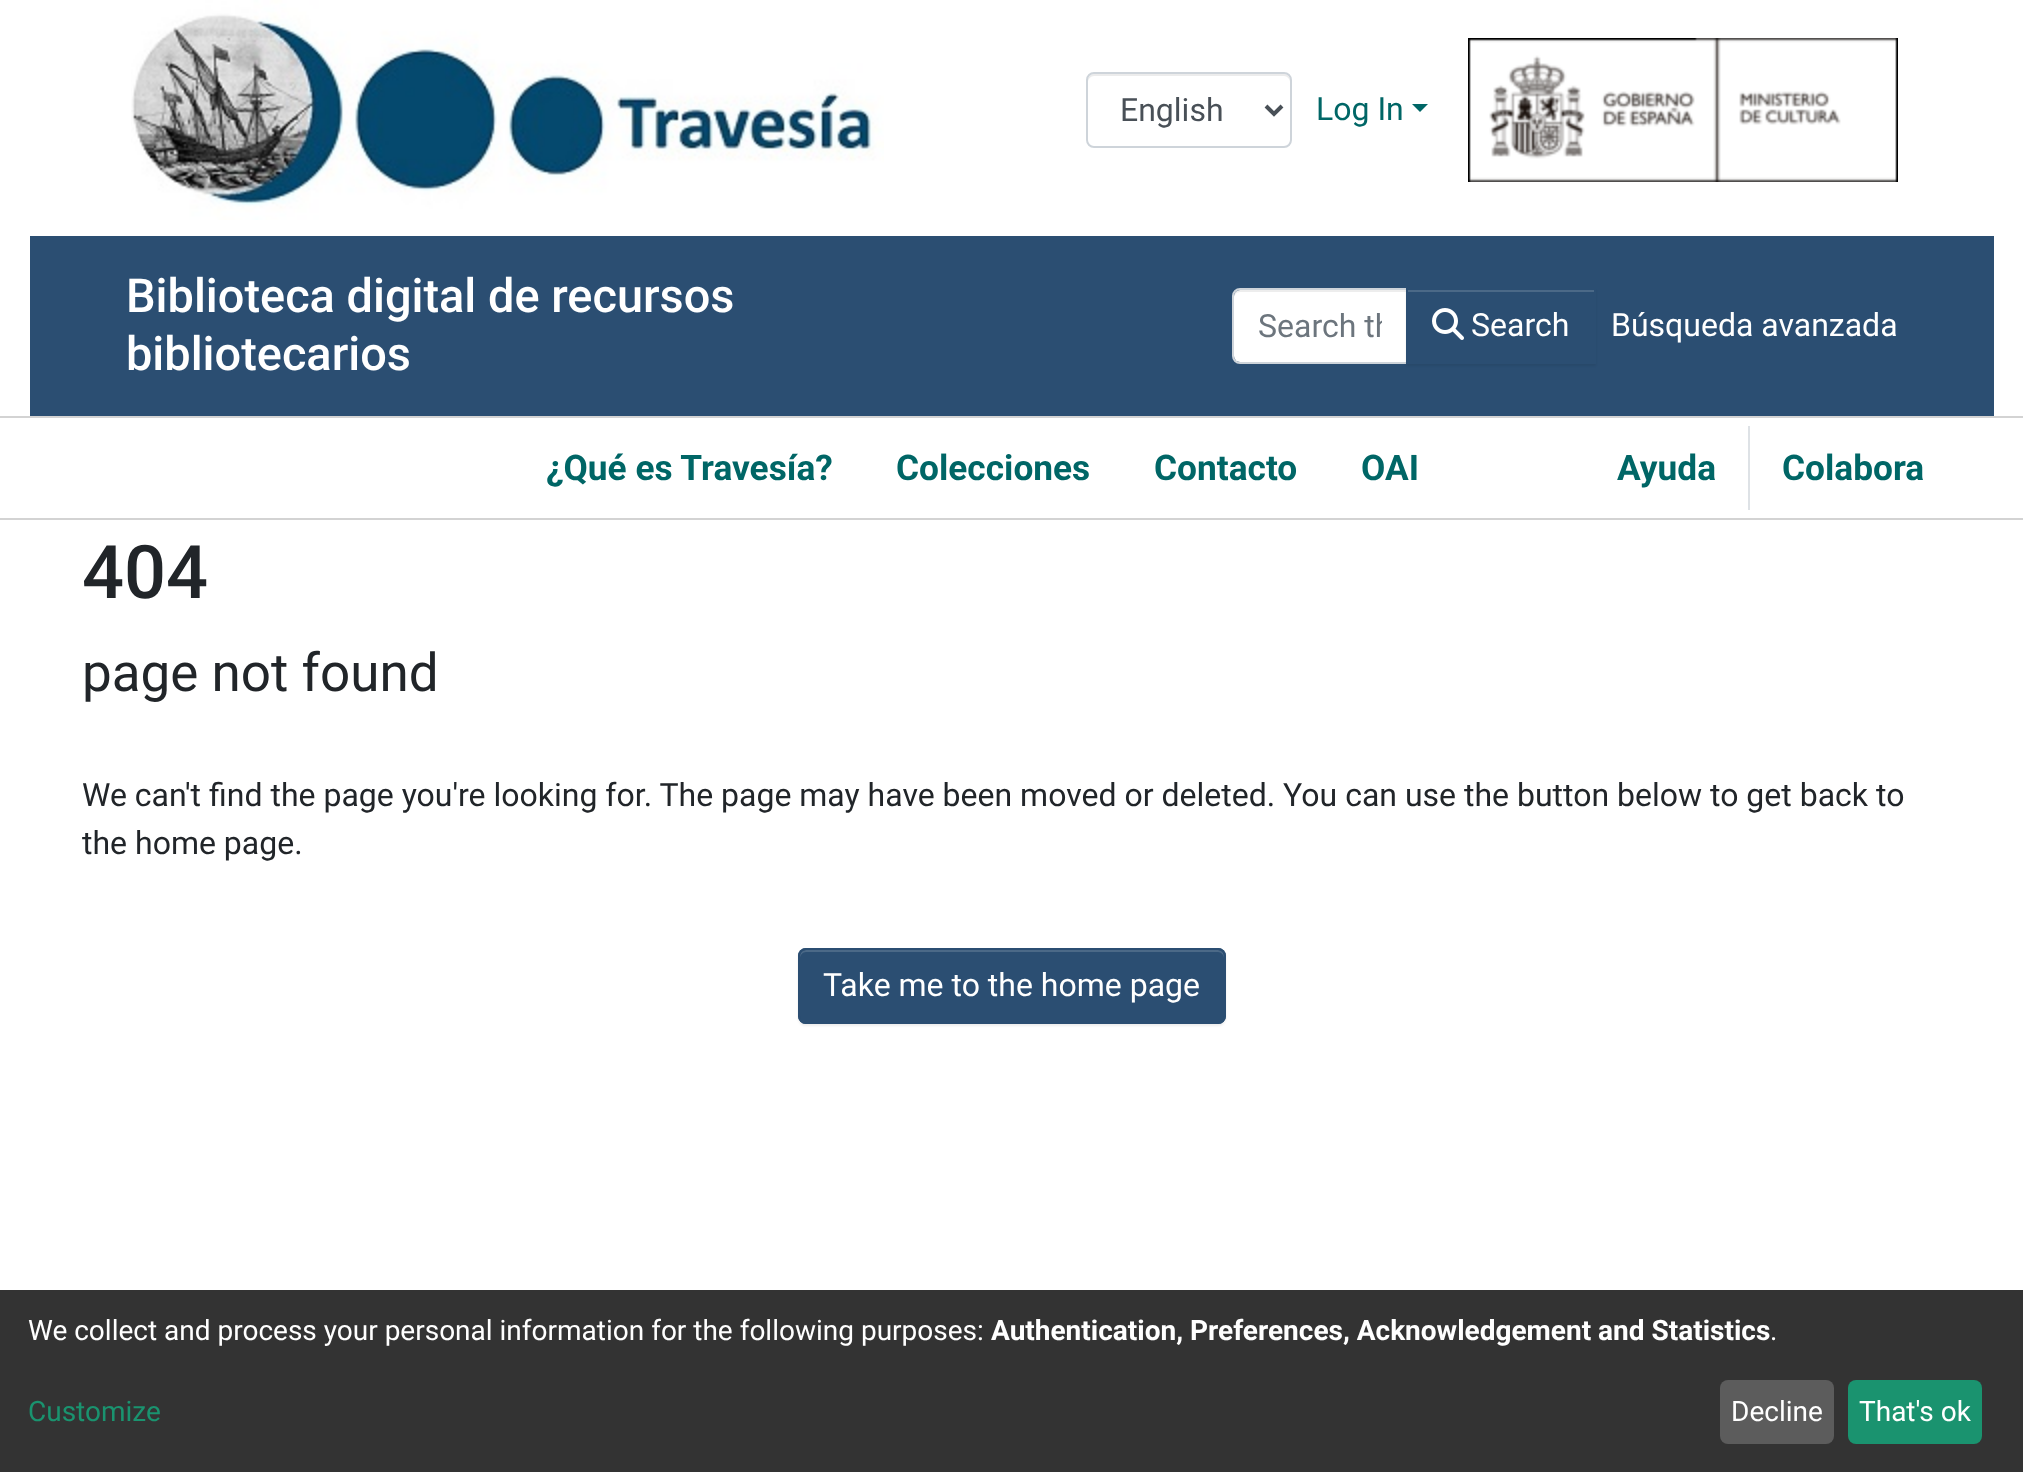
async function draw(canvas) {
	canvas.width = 2023;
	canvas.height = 1472;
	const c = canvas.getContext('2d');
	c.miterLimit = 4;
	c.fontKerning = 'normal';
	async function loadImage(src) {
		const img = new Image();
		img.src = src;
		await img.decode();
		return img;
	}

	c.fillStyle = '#fff';
	c.fillRect(0, 0, 2023, 1472);
	c.drawImage(await loadImage('img1.png'), 131, 0, 753, 220);
	c.fillStyle = '#ececec';
	c.beginPath();
	c.moveTo(1094, 76);
	c.lineTo(1284, 76);
	c.bezierCurveTo(1287, 76, 1290, 79, 1290, 82);
	c.lineTo(1290, 80);
	c.bezierCurveTo(1290, 77, 1287, 74, 1284, 74);
	c.lineTo(1094, 74);
	c.bezierCurveTo(1091, 74, 1088, 77, 1088, 80);
	c.lineTo(1088, 82);
	c.bezierCurveTo(1088, 79, 1091, 76, 1094, 76);
	c.closePath();
	c.fill();
	c.beginPath();
	c.roundRect(1087, 73, 204, 74, 7);
	c.strokeStyle = '#ced4da';
	c.lineWidth = 2;
	c.stroke();
	c.beginPath();
	c.moveTo(1266, 106);
	c.lineTo(1274, 114);
	c.lineTo(1282, 106);
	c.strokeStyle = '#495057';
	c.lineWidth = 4;
	c.stroke();
	c.font = '32px Roboto';
	c.fillStyle = '#495057';
	c.fillText('English', 1120, 121);
	c.fillStyle = '#066';
	c.fillText('Log In', 1316, 120);
	c.beginPath();
	c.moveTo(1412, 104);
	c.lineTo(1428, 104);
	c.lineTo(1420, 112);
	c.closePath();
	c.fill();
	c.drawImage(await loadImage('img2.png'), 1468, 38, 430, 144);
	c.fillStyle = '#2b4e72';
	c.fillRect(30, 236, 1964, 180);
	c.font = '500 46.9px Roboto';
	c.fillStyle = '#fff';
	c.fillText('Biblioteca digital de recursos', 126, 312);
	c.fillText('bibliotecarios', 126, 370);
	c.beginPath();
	c.roundRect(1234, 290, 172, 72, [6, 0, 0, 6]);
	c.fill();
	c.fillStyle = '#00000012';
	c.beginPath();
	c.moveTo(1240, 292);
	c.lineTo(1406, 292);
	c.lineTo(1406, 290);
	c.lineTo(1240, 290);
	c.bezierCurveTo(1237, 290, 1234, 293, 1234, 296);
	c.lineTo(1234, 298);
	c.bezierCurveTo(1234, 295, 1237, 292, 1240, 292);
	c.closePath();
	c.fill();
	c.beginPath();
	c.roundRect(1233, 289, 174, 74, [7, 0, 0, 7]);
	c.strokeStyle = '#ced4da';
	c.lineWidth = 2;
	c.stroke();
	c.save();
	c.beginPath();
	c.rect(1258, 308, 124, 38);
	c.clip();
	c.font = '32px Roboto';
	c.fillStyle = '#6c757d';
	c.fillText('Search th', 1258, 337);
	c.restore();
	c.filter = 'blur(1px)';
	c.beginPath();
	c.rect(1406, 290, 190, 76);
	c.fill();
	c.filter = 'none';
	c.fillStyle = '#2b4e72';
	c.fillRect(1406, 288, 190, 76);
	c.fillStyle = '#4b6987';
	c.fillRect(1408, 290, 186, 2);
	c.drawImage(await loadImage('img3.png'), 1432, 308, 32, 32);
	c.font = '32px Roboto';
	c.fillStyle = '#fff';
	c.fillText('Search', 1471, 336);
	c.fillText('Búsqueda avanzada', 1611, 336);
	c.fillStyle = '#d3d3d3';
	c.fillRect(0, 416, 2023, 2);
	c.fillRect(0, 518, 2023, 2);
	c.font = 'bold 35.25px Roboto';
	c.fillStyle = '#066';
	for (const [text, x, y] of [
		['¿Qué es Travesía?', 546, 480],
		['Colecciones', 896, 480],
		['Contacto', 1154, 480],
		['OAI', 1361, 480],
		['Ayuda', 1617, 480],
	]) {
		c.fillText(text, x, y);
	}
	c.fillStyle = '#dee2e6';
	c.fillRect(1748, 426, 2, 84);
	c.fillStyle = '#066';
	c.fillText('Colabora', 1782, 480);
	c.font = '500 74px Roboto';
	c.fillStyle = '#212529';
	c.fillText('404', 82, 598);
	c.font = '53px Roboto';
	c.fillText('page not found', 82, 691);
	c.font = '32px Roboto';
	c.fillText('We can\'t find the page you\'re looking for. The page may have been moved or deleted. You can use the button below to get back to', 82, 806);
	c.fillText('the home page.', 82, 854);
	c.fillStyle = '#00000012';
	c.filter = 'blur(1px)';
	c.beginPath();
	c.roundRect(798, 950, 428, 76, 8);
	c.fill();
	c.filter = 'none';
	c.fillStyle = '#2b4e72';
	c.beginPath();
	c.roundRect(798, 948, 428, 76, 8);
	c.fill();
	c.fillStyle = '#4b6987';
	c.beginPath();
	c.moveTo(806, 952);
	c.lineTo(1218, 952);
	c.bezierCurveTo(1221, 952, 1224, 955, 1224, 958);
	c.lineTo(1224, 956);
	c.bezierCurveTo(1224, 953, 1221, 950, 1218, 950);
	c.lineTo(806, 950);
	c.bezierCurveTo(803, 950, 800, 953, 800, 956);
	c.lineTo(800, 958);
	c.bezierCurveTo(800, 955, 803, 952, 806, 952);
	c.closePath();
	c.fill();
	c.beginPath();
	c.roundRect(799, 949, 426, 74, 7);
	c.strokeStyle = '#2b4e72';
	c.stroke();
	c.fillStyle = '#fff';
	c.fillText('Take me to the home page', 823, 996);
	c.fillStyle = '#333';
	c.fillRect(0, 1290, 2023, 182);
	c.font = '28px Roboto';
	c.fillStyle = '#fff';
	c.fillText('We collect and process your personal information for the following purposes:', 28, 1340);
	c.font = 'bold 28px Roboto';
	c.fillText('Authentication, Preferences, Acknowledgement and Statistics', 991, 1340);
	c.font = '28px Roboto';
	c.fillText('.', 1770, 1340);
	c.fillStyle = '#1a936f';
	c.fillText('Customize', 28, 1421);
	c.fillStyle = '#5c5c5c';
	c.beginPath();
	c.roundRect(1720, 1380, 114, 64, 8);
	c.fill();
	c.fillStyle = '#fff';
	c.fillText('Decline', 1731, 1421);
	c.fillStyle = '#1a936f';
	c.beginPath();
	c.roundRect(1848, 1380, 134, 64, 8);
	c.fill();
	c.fillStyle = '#fff';
	c.fillText('That\'s ok', 1859, 1421);
}

draw(document.querySelector('canvas'));
